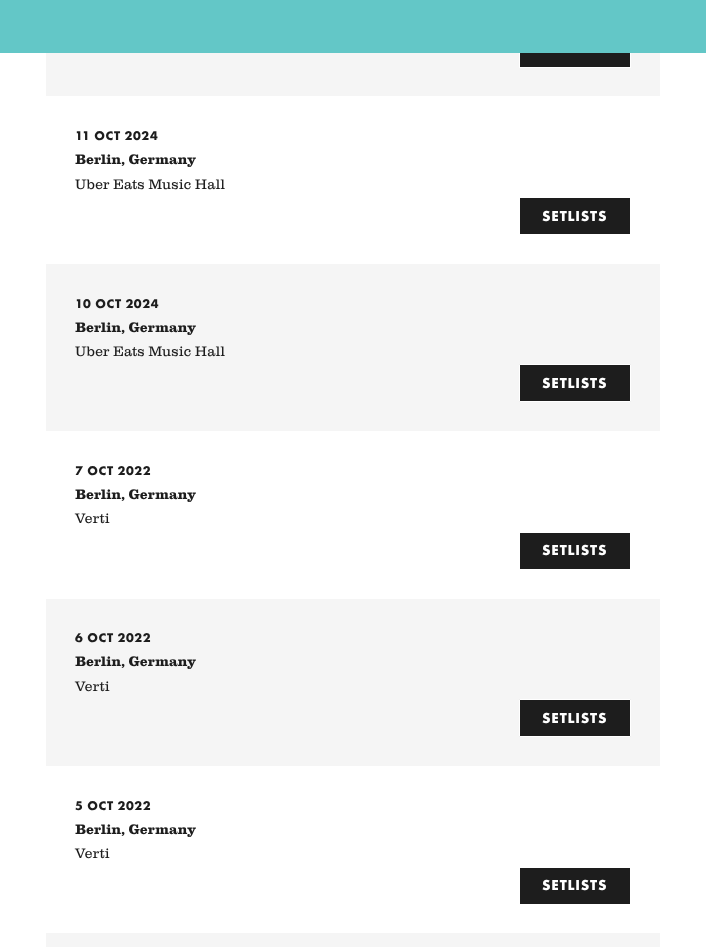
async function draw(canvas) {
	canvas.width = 706;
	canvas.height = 947;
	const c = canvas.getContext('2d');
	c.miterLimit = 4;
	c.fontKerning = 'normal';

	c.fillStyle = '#fff';
	c.fillRect(0, 0, 706, 947);
	c.fillStyle = '#f5f5f5';
	c.fillRect(46, 53, 614, 43);
	c.fillStyle = '#1d1d1d';
	c.fillRect(520, 53, 110, 14);
	c.strokeStyle = '#fff';
	c.strokeRect(519.5, 30.5, 111, 37);
	c.fillStyle = '#63c7c7';
	c.fillRect(0, 0, 706, 53);
	c.letterSpacing = '0.6px';
	c.font = 'bold 13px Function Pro';
	c.fillStyle = '#1d1d1d';
	c.fillText('11 OCT 2024', 75, 140);
	c.letterSpacing = '0px';
	c.font = '800 14.4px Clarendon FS';
	c.fillText('Berlin, Germany', 75, 164);
	c.font = '14.4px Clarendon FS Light';
	c.fillText('Uber Eats Music Hall', 75, 189);
	c.fillRect(520, 198, 110, 36);
	c.letterSpacing = '0.75px';
	c.font = 'bold 15px Function Pro';
	c.fillStyle = '#fff';
	c.fillText('SETLISTS', 542, 221);
	c.fillStyle = '#f5f5f5';
	c.fillRect(46, 264, 614, 167);
	c.letterSpacing = '0.6px';
	c.font = 'bold 13px Function Pro';
	c.fillStyle = '#1d1d1d';
	c.fillText('10 OCT 2024', 75, 308);
	c.letterSpacing = '0px';
	c.font = '800 14.4px Clarendon FS';
	c.fillText('Berlin, Germany', 75, 332);
	c.font = '14.4px Clarendon FS Light';
	c.fillText('Uber Eats Music Hall', 75, 356);
	c.beginPath();
	c.rect(519.5, 364.5, 111, 37);
	c.fill();
	c.stroke();
	c.letterSpacing = '0.75px';
	c.font = 'bold 15px Function Pro';
	c.fillStyle = '#fff';
	c.fillText('SETLISTS', 542, 388);
	c.letterSpacing = '0.6px';
	c.font = 'bold 13px Function Pro';
	c.fillStyle = '#1d1d1d';
	c.fillText('7 OCT 2022', 75, 475);
	c.letterSpacing = '0px';
	c.font = '800 14.4px Clarendon FS';
	c.fillText('Berlin, Germany', 75, 499);
	c.font = '14.4px Clarendon FS Light';
	c.fillText('Verti', 75, 523);
	c.fillRect(520, 533, 110, 36);
	c.letterSpacing = '0.75px';
	c.font = 'bold 15px Function Pro';
	c.fillStyle = '#fff';
	c.fillText('SETLISTS', 542, 555);
	c.fillStyle = '#f5f5f5';
	c.fillRect(46, 599, 614, 167);
	c.letterSpacing = '0.6px';
	c.font = 'bold 13px Function Pro';
	c.fillStyle = '#1d1d1d';
	c.fillText('6 OCT 2022', 75, 642);
	c.letterSpacing = '0px';
	c.font = '800 14.4px Clarendon FS';
	c.fillText('Berlin, Germany', 75, 666);
	c.font = '14.4px Clarendon FS Light';
	c.fillText('Verti', 75, 691);
	c.beginPath();
	c.rect(519.5, 699.5, 111, 37);
	c.fill();
	c.stroke();
	c.letterSpacing = '0.75px';
	c.font = 'bold 15px Function Pro';
	c.fillStyle = '#fff';
	c.fillText('SETLISTS', 542, 723);
	c.letterSpacing = '0.6px';
	c.font = 'bold 13px Function Pro';
	c.fillStyle = '#1d1d1d';
	c.fillText('5 OCT 2022', 75, 810);
	c.letterSpacing = '0px';
	c.font = '800 14.4px Clarendon FS';
	c.fillText('Berlin, Germany', 75, 834);
	c.font = '14.4px Clarendon FS Light';
	c.fillText('Verti', 75, 858);
	c.fillRect(520, 868, 110, 36);
	c.letterSpacing = '0.75px';
	c.font = 'bold 15px Function Pro';
	c.fillStyle = '#fff';
	c.fillText('SETLISTS', 542, 890);
	c.fillStyle = '#f5f5f5';
	c.fillRect(46, 933, 614, 14);
}

draw(document.querySelector('canvas'));
